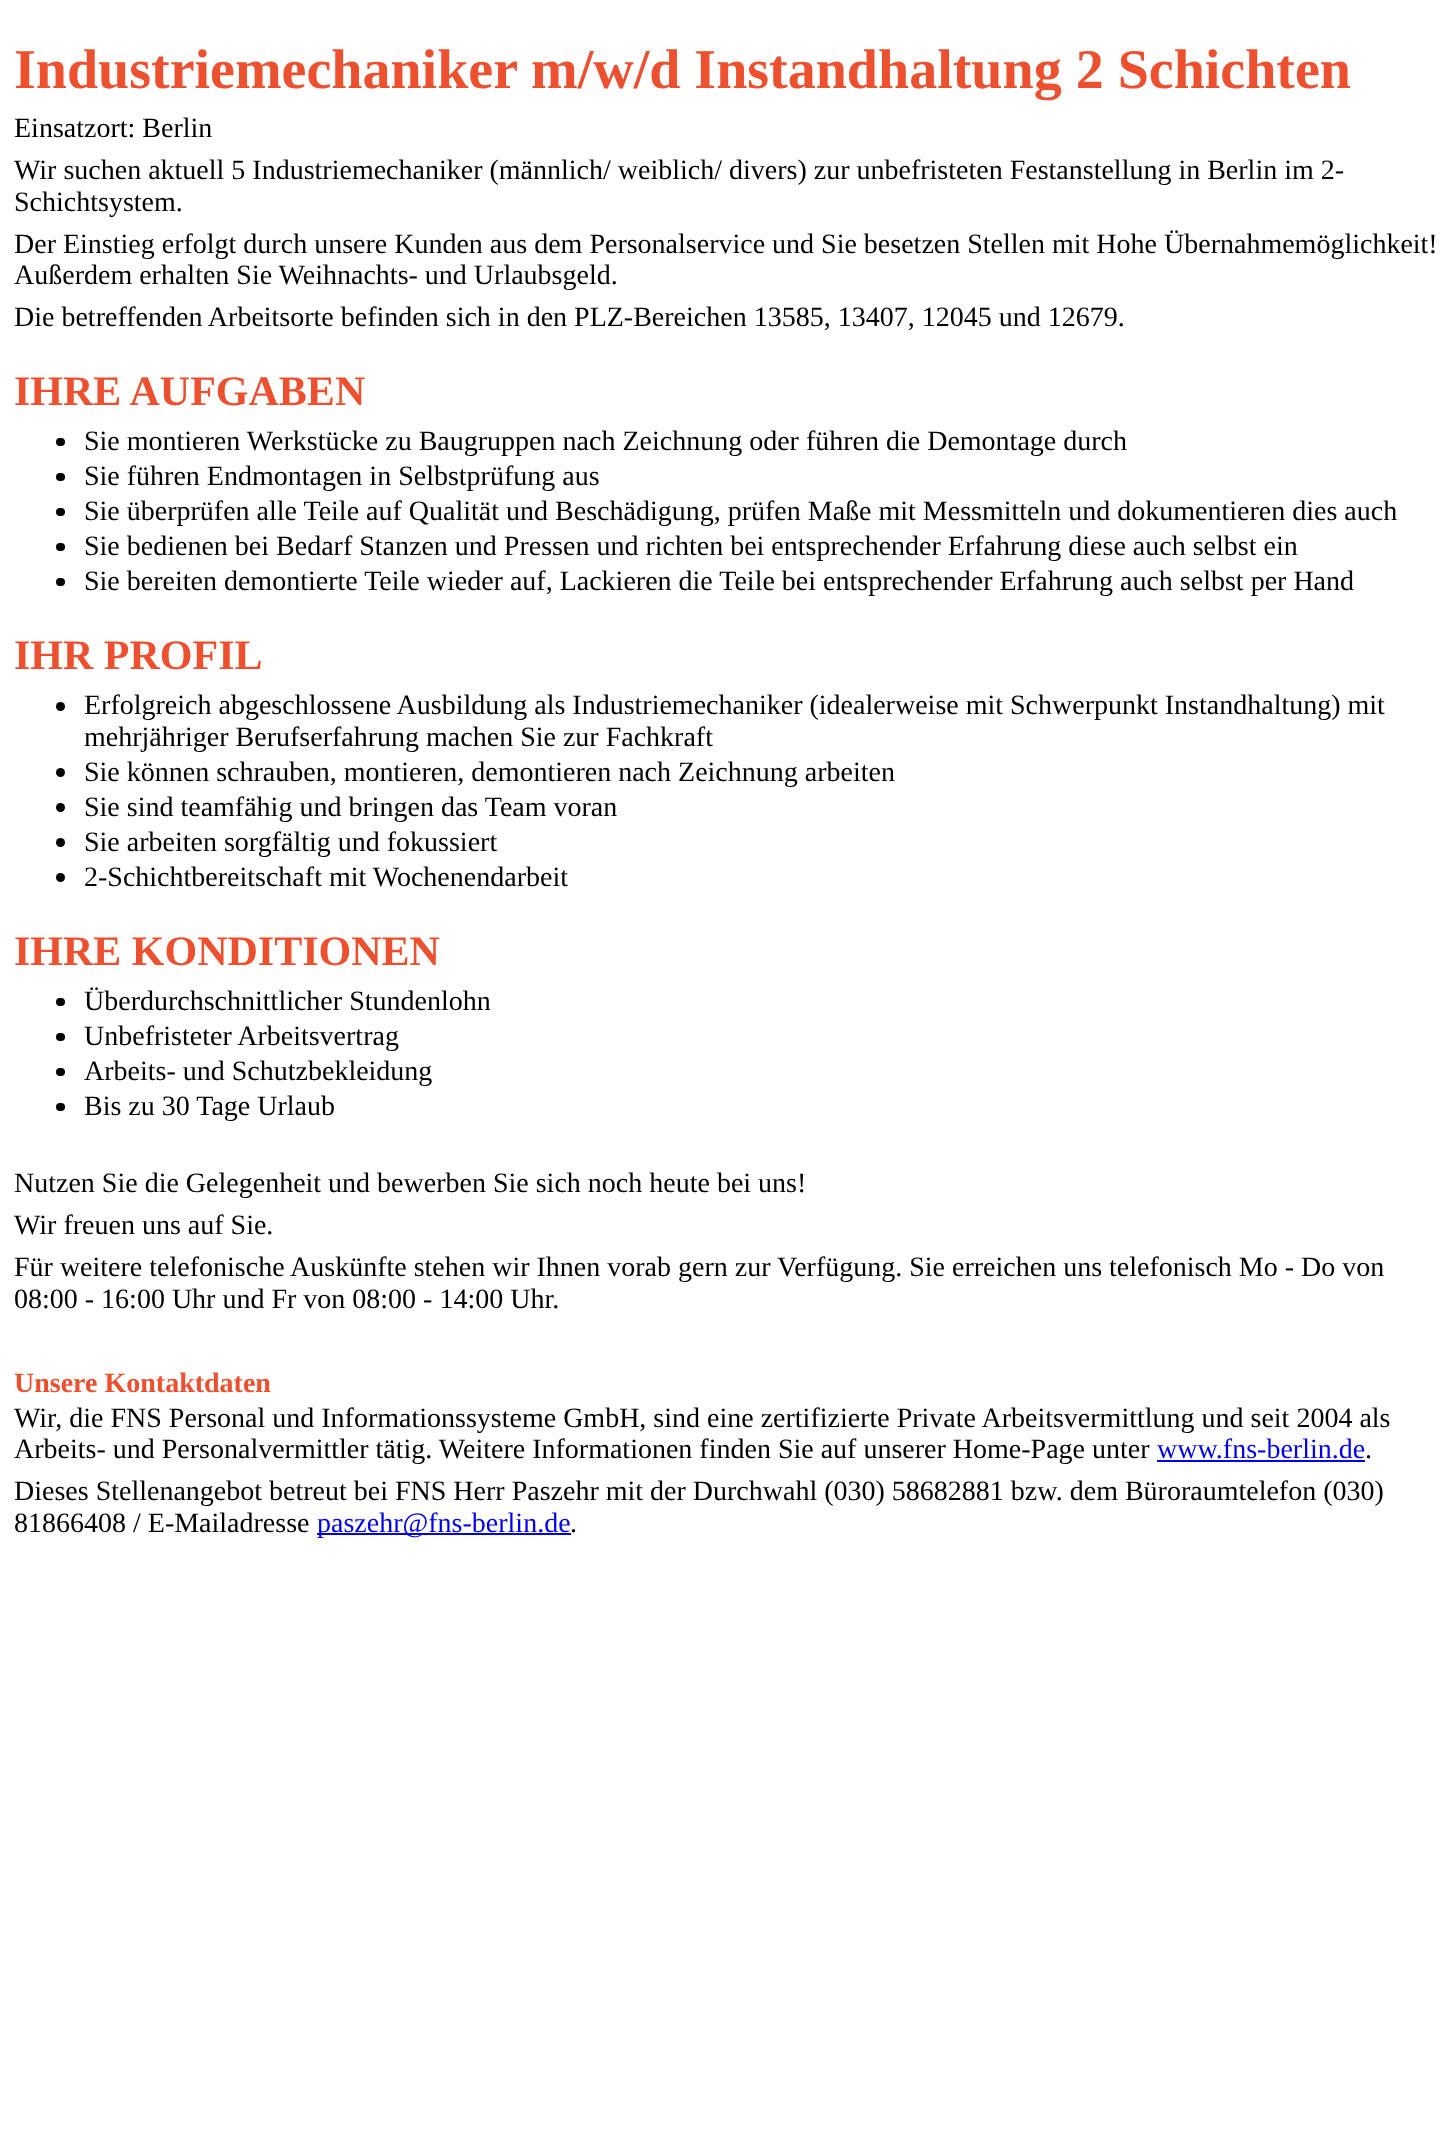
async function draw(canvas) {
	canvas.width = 1452;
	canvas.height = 2142;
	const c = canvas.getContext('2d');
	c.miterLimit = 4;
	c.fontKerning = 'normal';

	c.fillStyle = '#fff';
	c.fillRect(0, 0, 1452, 2142);
	c.font = 'bold 56px Liberation Serif';
	c.fillStyle = '#ed502e';
	c.fillText('Industriemechaniker m/w/d Instandhaltung 2 Schichten', 14, 88);
	c.font = '28px Liberation Serif';
	c.fillStyle = '#000';
	for (const [text, x, y] of [
		['Einsatzort: Berlin', 14, 137],
		['Wir suchen aktuell 5 Industriemechaniker (männlich/ weiblich/ divers) zur unbefristeten Festanstellung in Berlin im 2-', 14, 179],
		['Schichtsystem.', 14, 211],
		['Der Einstieg erfolgt durch unsere Kunden aus dem Personalservice und Sie besetzen Stellen mit Hohe Übernahmemöglichkeit!', 14, 253],
		['Außerdem erhalten Sie Weihnachts- und Urlaubsgeld.', 14, 284],
		['Die betreffenden Arbeitsorte befinden sich in den PLZ-Bereichen 13585, 13407, 12045 und 12679.', 14, 326],
	]) {
		c.fillText(text, x, y);
	}
	c.font = 'bold 42px Liberation Serif';
	c.fillStyle = '#ed502e';
	c.fillText('IHRE AUFGABEN', 14, 405);
	c.fillStyle = '#000';
	c.beginPath();
	c.roundRect(56, 438, 9, 8, 4);
	c.fill();
	c.font = '28px Liberation Serif';
	c.fillText('Sie montieren Werkstücke zu Baugruppen nach Zeichnung oder führen die Demontage durch', 84, 450);
	c.beginPath();
	c.roundRect(56, 473, 9, 8, 4);
	c.fill();
	c.fillText('Sie führen Endmontagen in Selbstprüfung aus', 84, 485);
	c.beginPath();
	c.roundRect(56, 508, 9, 8, 4);
	c.fill();
	c.fillText('Sie überprüfen alle Teile auf Qualität und Beschädigung, prüfen Maße mit Messmitteln und dokumentieren dies auch', 84, 520);
	c.beginPath();
	c.roundRect(56, 543, 9, 8, 4);
	c.fill();
	c.fillText('Sie bedienen bei Bedarf Stanzen und Pressen und richten bei entsprechender Erfahrung diese auch selbst ein', 84, 555);
	c.beginPath();
	c.roundRect(56, 578, 9, 8, 4);
	c.fill();
	c.fillText('Sie bereiten demontierte Teile wieder auf, Lackieren die Teile bei entsprechender Erfahrung auch selbst per Hand', 84, 590);
	c.font = 'bold 42px Liberation Serif';
	c.fillStyle = '#ed502e';
	c.fillText('IHR PROFIL', 14, 669);
	c.fillStyle = '#000';
	c.beginPath();
	c.arc(60.5, 706.5, 4.5, 0, 2 * Math.PI);
	c.fill();
	c.font = '28px Liberation Serif';
	c.fillText('Erfolgreich abgeschlossene Ausbildung als Industriemechaniker (idealerweise mit Schwerpunkt Instandhaltung) mit', 84, 714);
	c.fillText('mehrjähriger Berufserfahrung machen Sie zur Fachkraft', 84, 746);
	c.beginPath();
	c.arc(60.5, 772.5, 4.5, 0, 2 * Math.PI);
	c.fill();
	c.fillText('Sie können schrauben, montieren, demontieren nach Zeichnung arbeiten', 84, 781);
	c.beginPath();
	c.arc(60.5, 807.5, 4.5, 0, 2 * Math.PI);
	c.fill();
	c.fillText('Sie sind teamfähig und bringen das Team voran', 84, 816);
	c.beginPath();
	c.arc(60.5, 842.5, 4.5, 0, 2 * Math.PI);
	c.fill();
	c.fillText('Sie arbeiten sorgfältig und fokussiert', 84, 851);
	c.beginPath();
	c.arc(60.5, 877.5, 4.5, 0, 2 * Math.PI);
	c.fill();
	c.fillText('2-Schichtbereitschaft mit Wochenendarbeit', 84, 886);
	c.font = 'bold 42px Liberation Serif';
	c.fillStyle = '#ed502e';
	c.fillText('IHRE KONDITIONEN', 14, 965);
	c.fillStyle = '#000';
	c.beginPath();
	c.roundRect(56, 998, 9, 8, 4);
	c.fill();
	c.font = '28px Liberation Serif';
	c.fillText('Überdurchschnittlicher Stundenlohn', 84, 1010);
	c.beginPath();
	c.roundRect(56, 1033, 9, 8, 4);
	c.fill();
	c.fillText('Unbefristeter Arbeitsvertrag', 84, 1045);
	c.beginPath();
	c.roundRect(56, 1068, 9, 8, 4);
	c.fill();
	c.fillText('Arbeits- und Schutzbekleidung', 84, 1080);
	c.beginPath();
	c.roundRect(56, 1103, 9, 8, 4);
	c.fill();
	for (const [text, x, y] of [
		['Bis zu 30 Tage Urlaub', 84, 1115],
		['Nutzen Sie die Gelegenheit und bewerben Sie sich noch heute bei uns!', 14, 1192],
		['Wir freuen uns auf Sie.', 14, 1234],
		['Für weitere telefonische Auskünfte stehen wir Ihnen vorab gern zur Verfügung. Sie erreichen uns telefonisch Mo - Do von', 14, 1276],
		['08:00 - 16:00 Uhr und Fr von 08:00 - 14:00 Uhr.', 14, 1308],
	]) {
		c.fillText(text, x, y);
	}
	c.font = 'bold 28px Liberation Serif';
	c.fillStyle = '#ed502e';
	c.fillText('Unsere Kontaktdaten', 14, 1392);
	c.font = '28px Liberation Serif';
	c.fillStyle = '#000';
	c.fillText('Wir, die FNS Personal und Informationssysteme GmbH, sind eine zertifizierte Private Arbeitsvermittlung und seit 2004 als', 14, 1427);
	c.fillText('Arbeits- und Personalvermittler tätig. Weitere Informationen finden Sie auf unserer Home-Page unter', 14, 1458);
	c.fillStyle = '#00e';
	c.fillText('www.fns-berlin.de', 1157, 1458);
	c.fillRect(1157, 1460, 208, 2);
	c.fillStyle = '#000';
	for (const [text, x, y] of [
		['.', 1365, 1458],
		['Dieses Stellenangebot betreut bei FNS Herr Paszehr mit der Durchwahl (030) 58682881 bzw. dem Büroraumtelefon (030)', 14, 1500],
		['81866408 / E-Mailadresse', 14, 1532],
	]) {
		c.fillText(text, x, y);
	}
	c.fillStyle = '#00e';
	c.fillRect(317, 1533, 254, 2);
	c.fillText('paszehr@fns-berlin.de', 317, 1532);
	c.fillStyle = '#000';
	c.fillText('.', 570, 1532);
}

draw(document.querySelector('canvas'));
